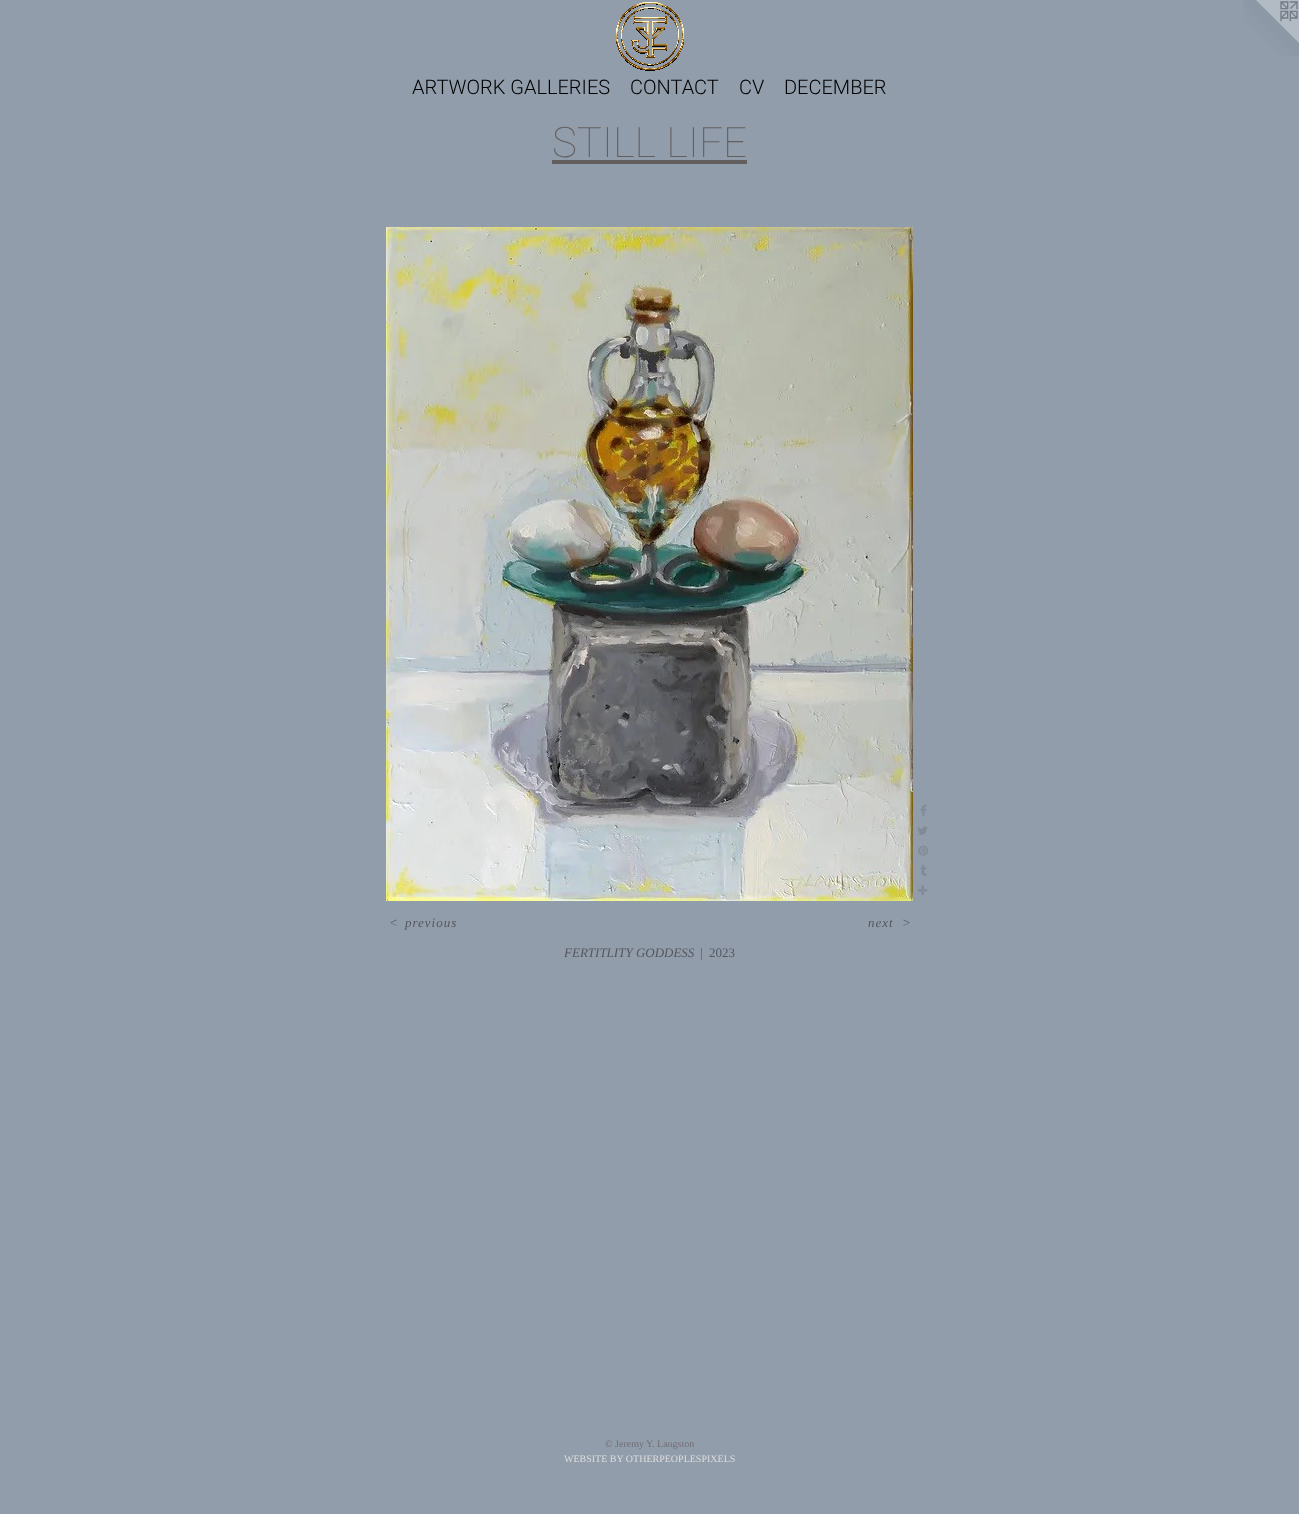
async function draw(canvas) {
	canvas.width = 1299;
	canvas.height = 1514;
	const c = canvas.getContext('2d');
	c.miterLimit = 4;
	c.fontKerning = 'normal';
	async function loadImage(src) {
		const img = new Image();
		img.src = src;
		await img.decode();
		return img;
	}

	c.fillStyle = '#919dab';
	c.fillRect(0, 0, 1299, 1514);
	c.drawImage(await loadImage('img1.png'), 616, 2, 68, 69);
	c.drawImage(await loadImage('img2.png'), 1243, 0, 56, 56);
	c.font = '300 20px Roboto';
	c.fillStyle = '#000';
	for (const [text, x, y] of [
		['ARTWORK GALLERIES', 412, 94],
		['CONTACT', 630, 94],
		['CV', 739, 94],
		['DECEMBER', 784, 94],
	]) {
		c.fillText(text, x, y);
	}
	c.font = '100 42px Roboto';
	c.fillStyle = '#645f5f';
	c.fillText('STILL LIFE', 552, 157);
	c.fillRect(552, 160, 195, 4);
	c.drawImage(await loadImage('img3.png'), 386, 227, 527, 674);
	c.drawImage(await loadImage('img4.png'), 920, 804, 7, 12);
	c.drawImage(await loadImage('img5.png'), 918, 826, 10, 9);
	c.drawImage(await loadImage('img6.png'), 918, 845, 11, 11);
	c.drawImage(await loadImage('img7.png'), 920, 864, 7, 12);
	c.drawImage(await loadImage('img8.png'), 918, 885, 10, 10);
	c.letterSpacing = '1px';
	c.font = 'italic 13px Liberation Serif';
	c.fillStyle = '#55575e';
	for (const [text, x, y] of [
		['<', 389, 927],
		['previous', 405, 927],
		['next', 868, 927],
		['>', 902, 927],
	]) {
		c.fillText(text, x, y);
	}
	c.letterSpacing = '0px';
	c.fillText('FERTITLITY GODDESS', 564, 957);
	c.font = '13px Liberation Serif';
	c.fillText('|', 700, 957);
	c.fillText('2023', 709, 957);
	c.font = '10px Liberation Serif';
	c.fillStyle = '#726e76';
	c.fillText('© Jeremy Y. Langston', 605, 1447);
	c.fillStyle = '#ddd';
	c.fillText('WEBSITE BY OTHERPEOPLESPIXELS', 564, 1462);
}

draw(document.querySelector('canvas'));
